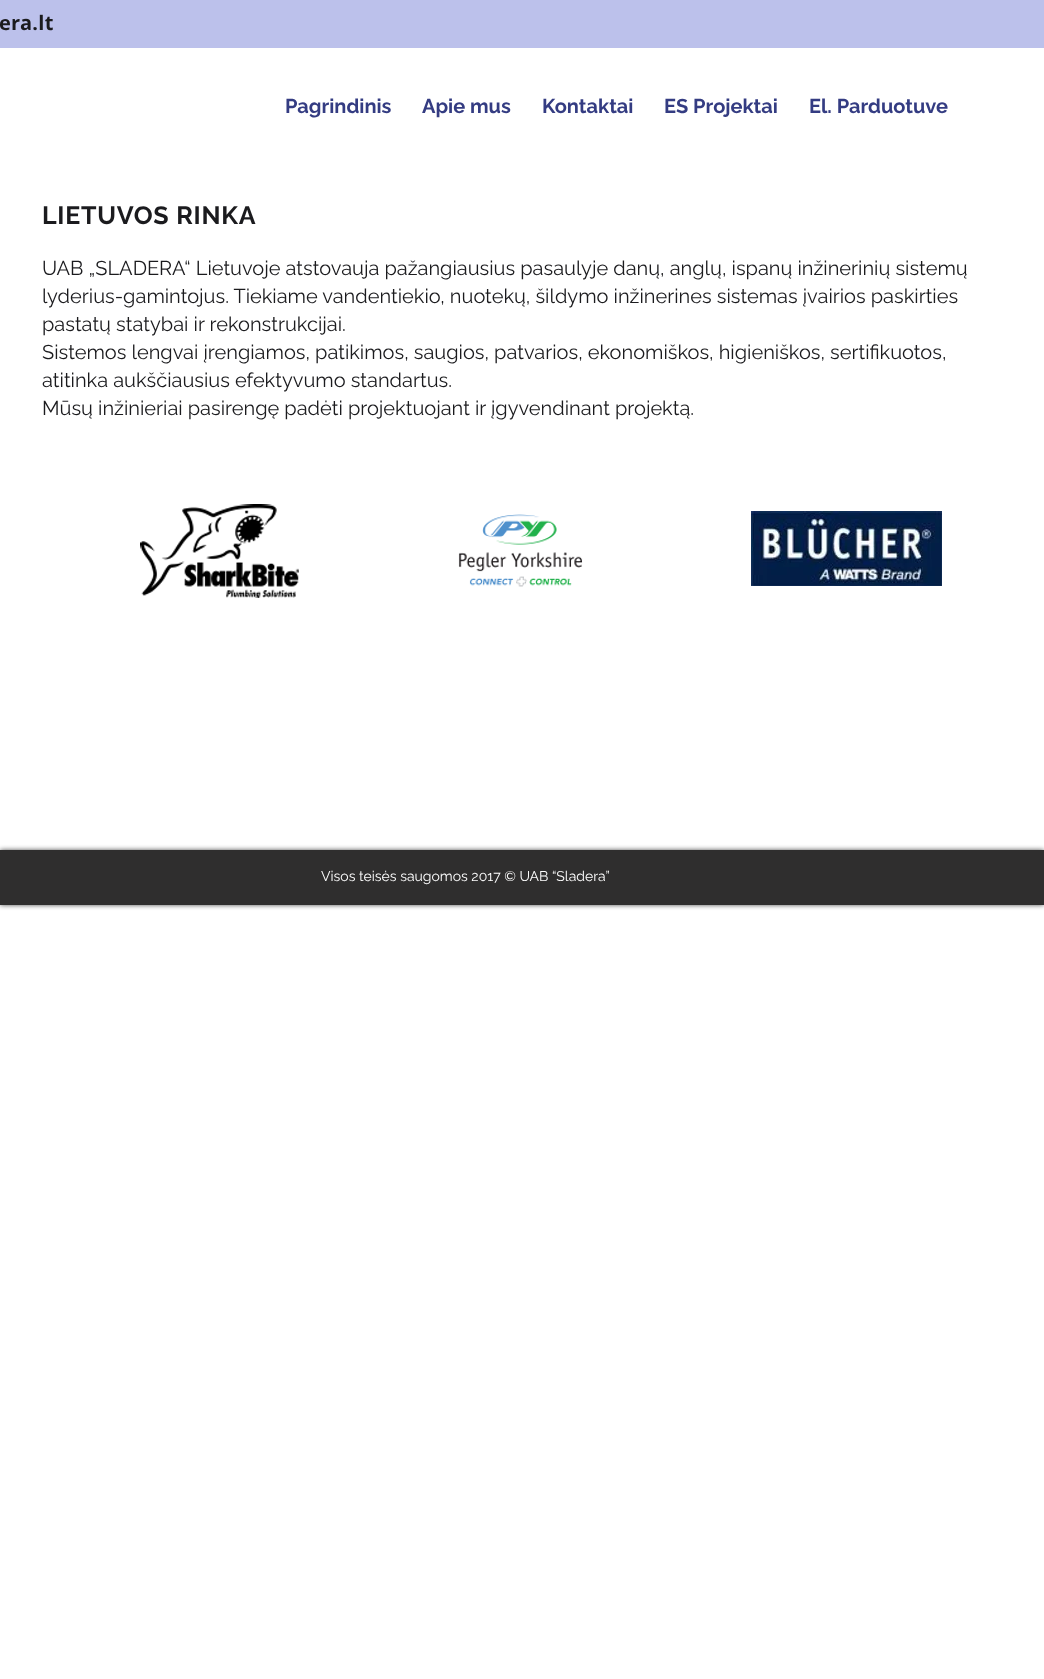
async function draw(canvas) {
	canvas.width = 1044;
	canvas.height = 1679;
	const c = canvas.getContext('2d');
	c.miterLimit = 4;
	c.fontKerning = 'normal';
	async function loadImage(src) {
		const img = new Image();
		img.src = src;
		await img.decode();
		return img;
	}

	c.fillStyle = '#fff';
	c.fillRect(0, 0, 1044, 1679);
	c.fillStyle = '#bcc1eb';
	c.fillRect(0, 0, 1044, 48);
	c.letterSpacing = '0.25px';
	c.font = 'bold 20px Open Sans';
	c.fillStyle = '#1b1b1e';
	c.fillText('era.lt', -1, 30);
	c.letterSpacing = '0px';
	c.font = 'bold 20px Raleway';
	c.fillStyle = '#343c82';
	for (const [text, x, y] of [
		['Pagrindinis', 285, 113],
		['Apie mus', 422, 113],
		['Kontaktai', 542, 113],
		['ES Projektai', 664, 113],
		['El. Parduotuve', 809, 113],
	]) {
		c.fillText(text, x, y);
	}
	c.letterSpacing = '0.75px';
	c.font = 'bold 25px Raleway';
	c.fillStyle = '#1b1b1e';
	c.fillText('LIETUVOS RINKA', 42, 224);
	c.letterSpacing = '0px';
	c.font = '20px Raleway';
	for (const [text, x, y] of [
		['UAB „SLADERA“ Lietuvoje atstovauja pažangiausius pasaulyje danų, anglų, ispanų inžinerinių sistemų', 42, 275],
		['lyderius-gamintojus. Tiekiame vandentiekio, nuotekų, šildymo inžinerines sistemas įvairios paskirties', 42, 303],
		['pastatų statybai ir rekonstrukcijai.', 42, 331],
		['Sistemos lengvai įrengiamos, patikimos, saugios, patvarios, ekonomiškos, higieniškos, sertifikuotos,', 42, 359],
		['atitinka aukščiausius efektyvumo standartus.', 42, 387],
		['Mūsų inžinieriai pasirengę padėti projektuojant ir įgyvendinant projektą.', 42, 415],
	]) {
		c.fillText(text, x, y);
	}
	c.drawImage(await loadImage('img1.png'), 140, 504, 159, 94);
	c.drawImage(await loadImage('img2.png'), 458, 514, 125, 73);
	c.drawImage(await loadImage('img3.png'), 751, 511, 191, 75);
	c.fillStyle = '#000000b3';
	c.filter = 'blur(2.5px)';
	c.beginPath();
	c.rect(0, 850, 1044, 55);
	c.fill();
	c.filter = 'none';
	c.fillStyle = '#2f2e2e';
	c.fillRect(0, 850, 1044, 55);
	c.font = '14px Raleway';
	c.fillStyle = '#fff';
	c.fillText('Visos teisės saugomos 2017 © UAB “Sladera”', 321, 881);
}

draw(document.querySelector('canvas'));
